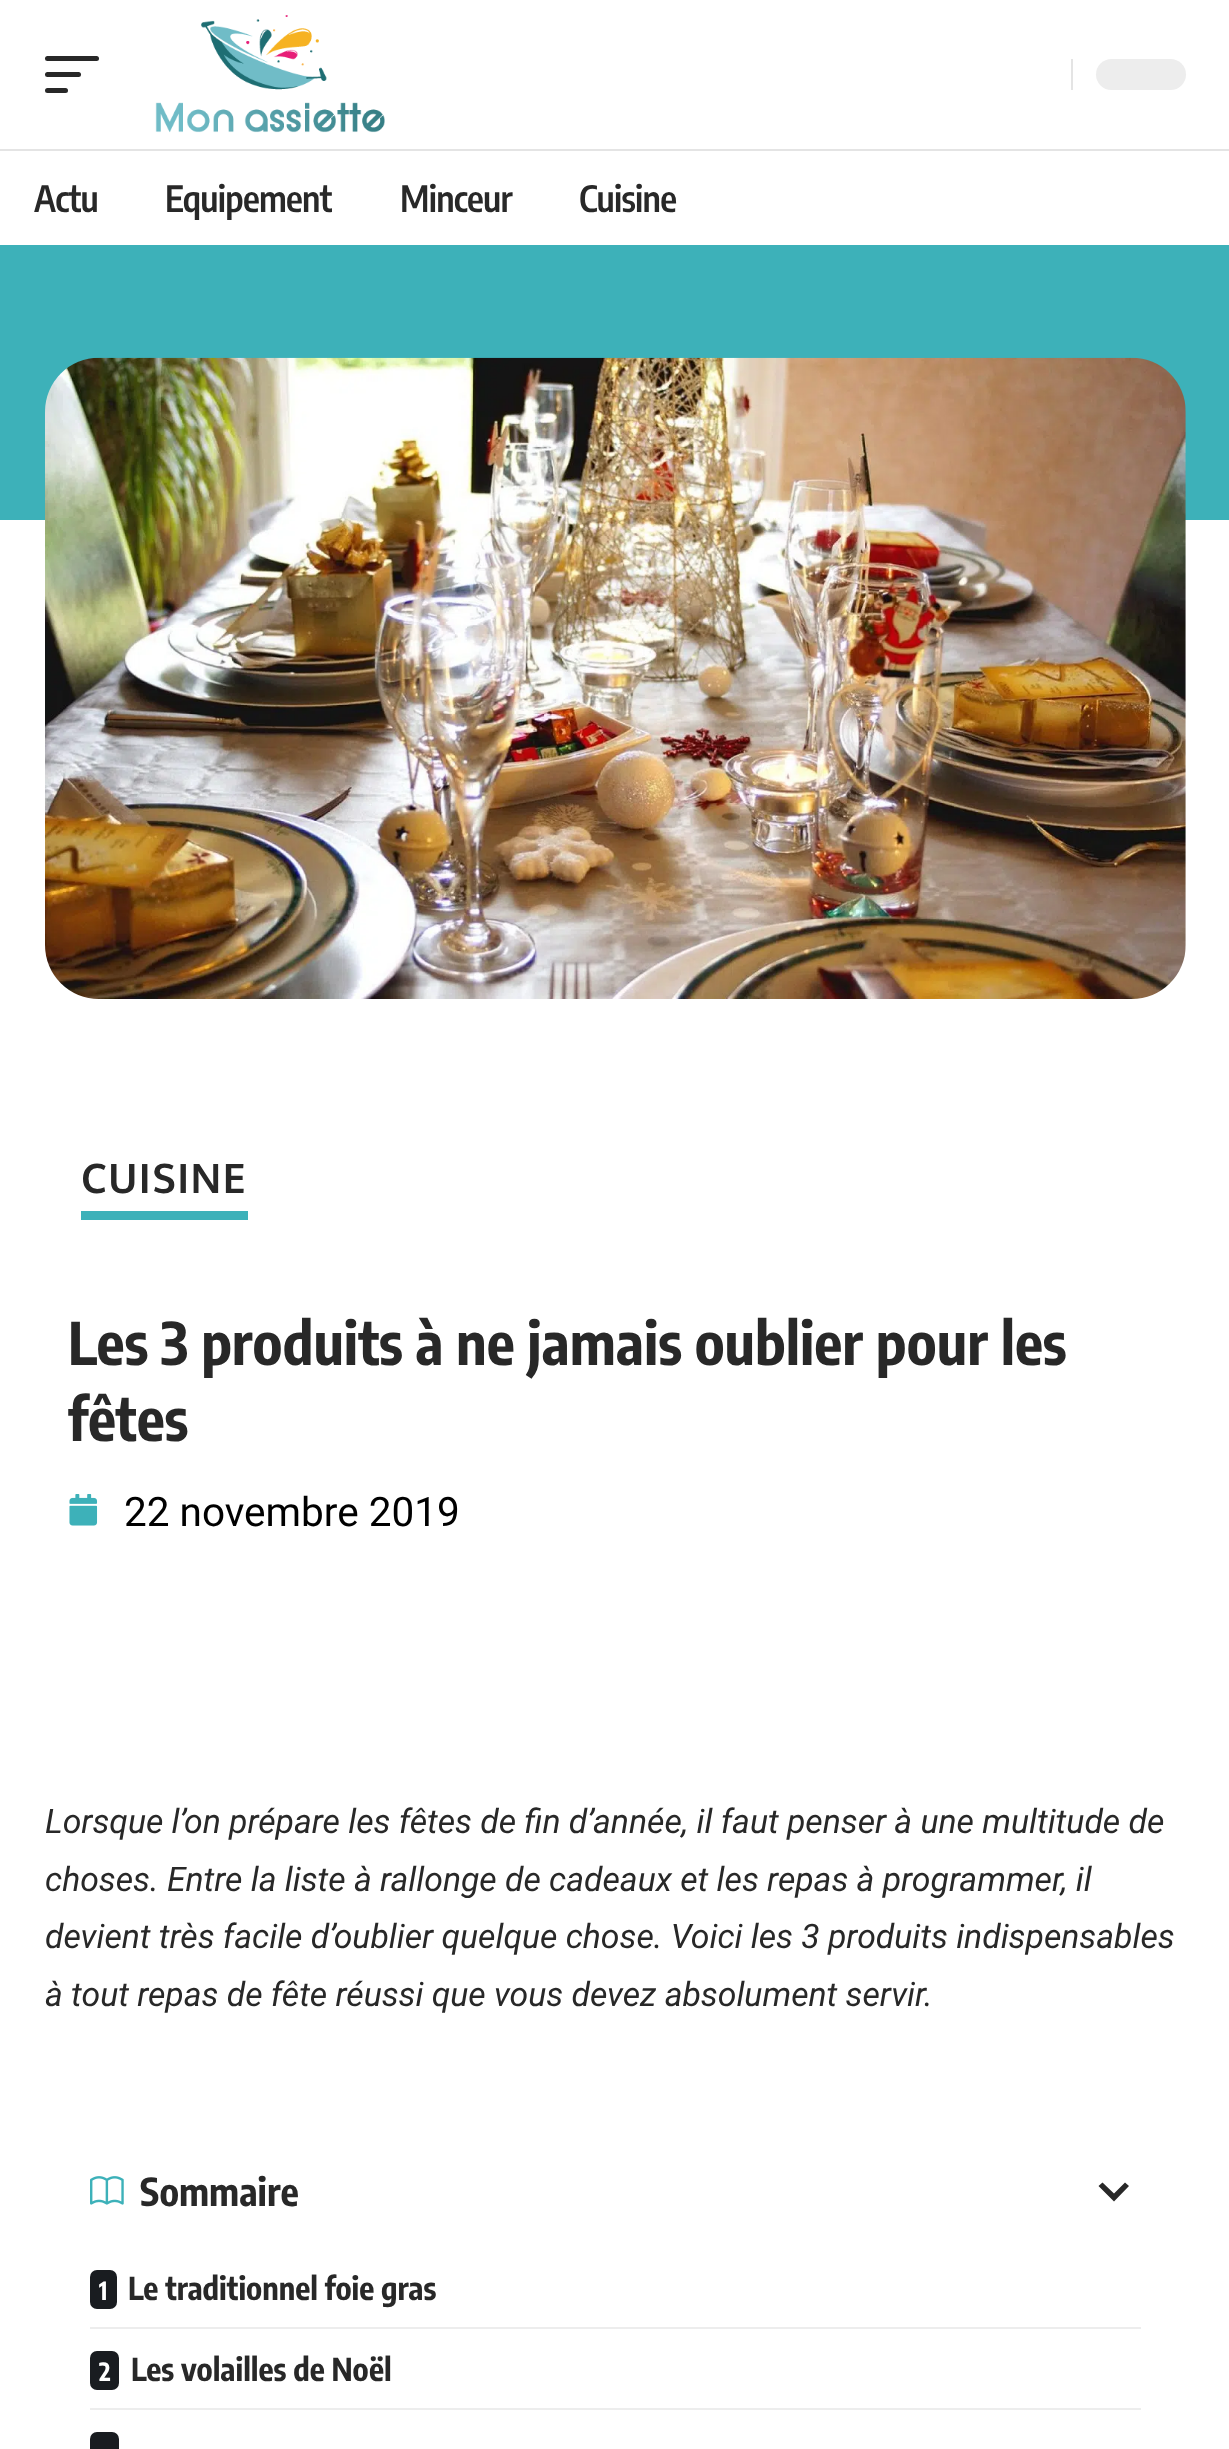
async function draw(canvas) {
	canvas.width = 1229;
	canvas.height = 2449;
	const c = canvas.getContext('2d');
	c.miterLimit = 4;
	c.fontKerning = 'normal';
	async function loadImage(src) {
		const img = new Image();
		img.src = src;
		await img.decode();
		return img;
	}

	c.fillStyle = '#fff';
	c.fillRect(0, 0, 1229, 2449);
	c.fillStyle = '#282828';
	c.beginPath();
	c.roundRect(45, 56, 54, 5, 2.5);
	c.fill();
	c.beginPath();
	c.roundRect(45, 72, 36, 5, 2.5);
	c.fill();
	c.beginPath();
	c.roundRect(45, 88, 23, 5, 2.5);
	c.fill();
	c.drawImage(await loadImage('img1.png'), 155, 15, 230, 118);
	c.fillStyle = '#e4e4e4';
	c.fillRect(1071, 59, 2, 31);
	c.fillStyle = '#ededed';
	c.beginPath();
	c.roundRect(1096, 59, 90, 31, 15.5);
	c.fill();
	c.fillStyle = '#e4e4e4';
	c.fillRect(0, 149, 1229, 2);
	c.letterSpacing = '-0.75px';
	c.font = '600 36px Encode Sans Condensed';
	c.fillStyle = '#282828';
	for (const [text, x, y] of [
		['Actu', 34, 212],
		['Equipement', 165, 212],
		['Minceur', 400, 212],
		['Cuisine', 579, 212],
	]) {
		c.fillText(text, x, y);
	}
	c.fillStyle = '#3db1b9';
	c.fillRect(0, 245, 1229, 275);
	c.drawImage(await loadImage('img2.png'), 45, 357, 1141, 642);
	c.letterSpacing = '1.5px';
	c.font = 'bold 40.5px Oxygen';
	c.fillStyle = '#282828';
	c.fillText('CUISINE', 81, 1193);
	c.fillStyle = '#3db1b9';
	c.fillRect(81, 1211, 167, 9);
	c.letterSpacing = '0px';
	c.font = 'bold 58.5px Encode Sans Condensed';
	c.fillStyle = '#282828';
	c.fillText('Les 3 produits à ne jamais oublier pour les', 68, 1365);
	c.fillText('fêtes', 68, 1441);
	c.drawImage(await loadImage('img3.png'), 69, 1494, 29, 32);
	c.font = '40.5px Roboto';
	c.fillStyle = '#000';
	c.fillText('22 novembre 2019', 124, 1526);
	c.font = 'italic 33.75px Roboto';
	c.fillStyle = '#282828';
	for (const [text, x, y] of [
		['Lorsque l’on prépare les fêtes de fin d’année, il faut penser à une multitude de', 45, 1833],
		['choses. Entre la liste à rallonge de cadeaux et les repas à programmer, il', 45, 1891],
		['devient très facile d’oublier quelque chose. Voici les 3 produits indispensables', 45, 1948],
		['à tout repas de fête réussi que vous devez absolument servir.', 45, 2006],
	]) {
		c.fillText(text, x, y);
	}
	c.drawImage(await loadImage('img4.png'), 90, 2176, 34, 29);
	c.font = 'bold 38.25px Encode Sans Condensed';
	c.fillText('Sommaire', 140, 2206);
	c.beginPath();
	c.moveTo(1112, 2199.5);
	c.lineTo(1114, 2201.5);
	c.lineTo(1129, 2186);
	c.lineTo(1125, 2182.5);
	c.lineTo(1114, 2193.5);
	c.lineTo(1102.5, 2182.5);
	c.lineTo(1098.5, 2186);
	c.closePath();
	c.fill();
	c.fillStyle = '#191c20';
	c.beginPath();
	c.roundRect(90, 2270, 27, 39, 7);
	c.fill();
	c.font = 'bold 25px Encode Sans Condensed';
	c.fillStyle = '#fff';
	c.fillText('1', 99, 2300);
	c.font = 'bold 31.5px Encode Sans Condensed';
	c.fillStyle = '#282828';
	c.fillText('Le traditionnel foie gras', 128, 2300);
	c.fillStyle = '#ededed';
	c.fillRect(90, 2327, 1051, 2);
	c.fillStyle = '#191c20';
	c.beginPath();
	c.roundRect(90, 2351, 29, 39, 7);
	c.fill();
	c.font = 'bold 25px Encode Sans Condensed';
	c.fillStyle = '#fff';
	c.fillText('2', 99, 2381);
	c.font = 'bold 31.5px Encode Sans Condensed';
	c.fillStyle = '#282828';
	c.fillText('Les volailles de Noël', 131, 2381);
	c.fillStyle = '#ededed';
	c.fillRect(90, 2408, 1051, 2);
	c.fillStyle = '#191c20';
	c.beginPath();
	c.roundRect(90, 2432, 29, 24, 7);
	c.fill();
}

draw(document.querySelector('canvas'));
